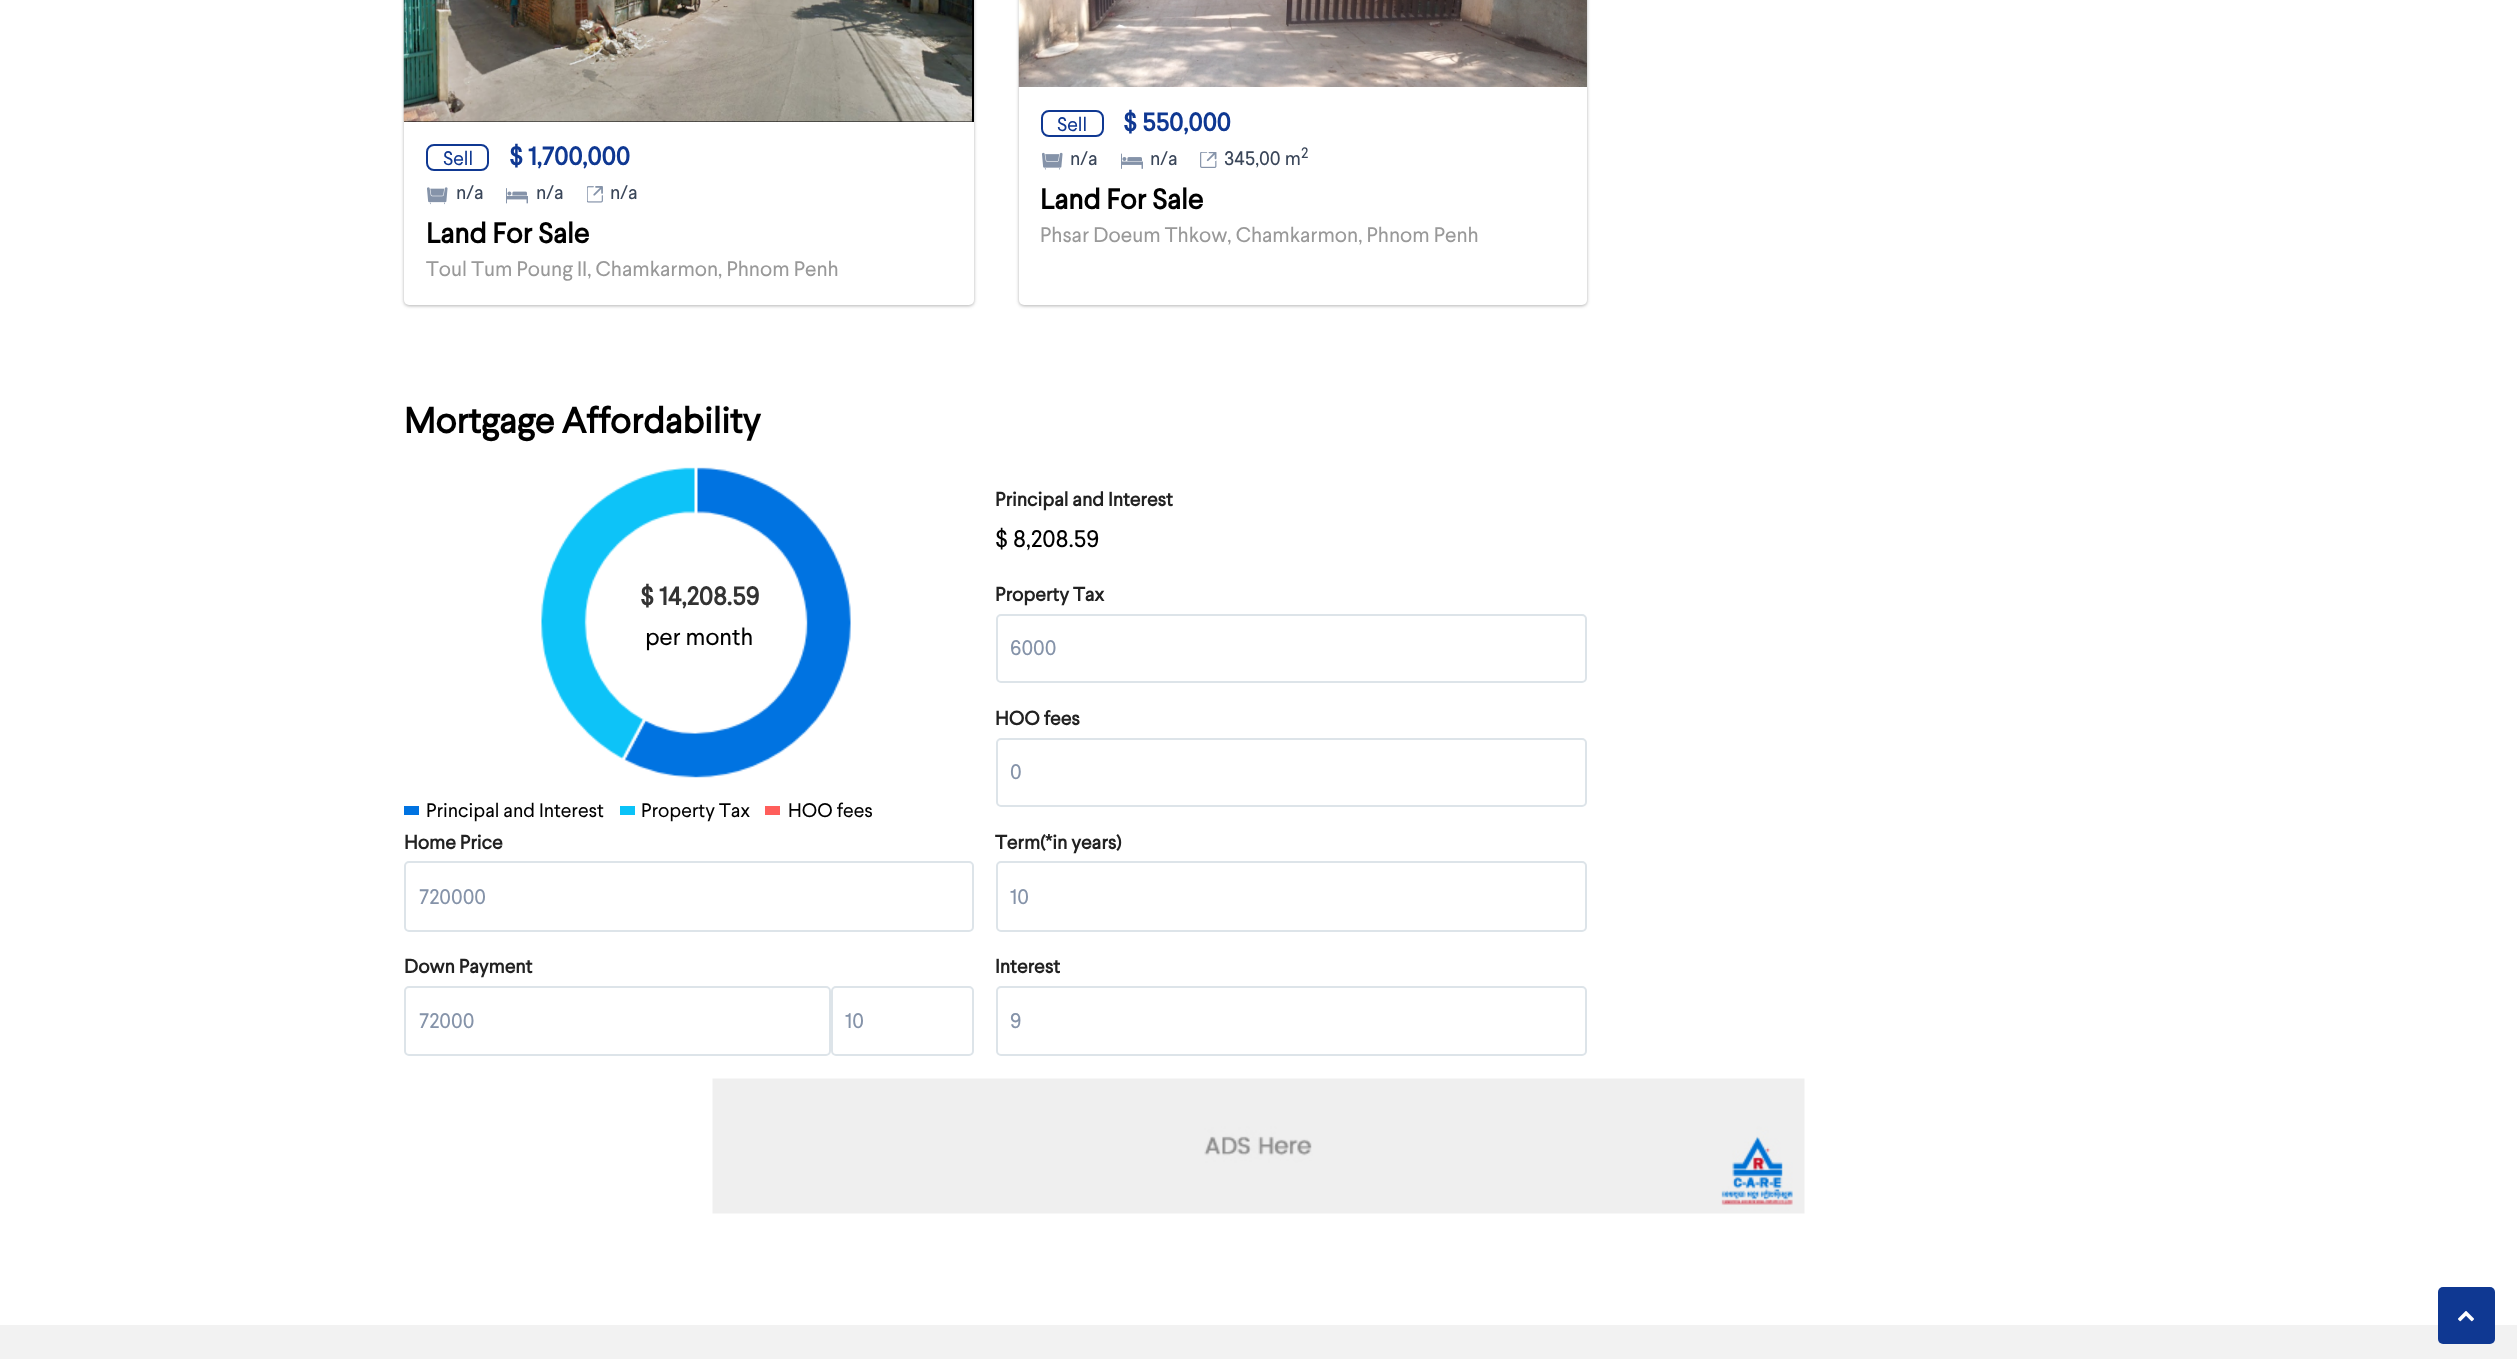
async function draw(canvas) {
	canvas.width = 2517;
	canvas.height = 1359;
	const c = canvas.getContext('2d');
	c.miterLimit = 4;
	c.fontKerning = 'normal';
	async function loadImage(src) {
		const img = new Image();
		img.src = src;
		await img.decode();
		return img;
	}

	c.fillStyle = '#fff';
	c.fillRect(0, 0, 2517, 1359);
	c.fillStyle = '#00000033';
	c.filter = 'blur(1.5px)';
	c.beginPath();
	c.roundRect(404, -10, 570, 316, 5);
	c.fill();
	c.filter = 'none';
	c.fillStyle = '#0000001a';
	c.filter = 'blur(2px)';
	c.beginPath();
	c.roundRect(404, -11, 570, 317, 5);
	c.fill();
	c.filter = 'none';
	c.fillStyle = '#fff';
	c.beginPath();
	c.roundRect(404, -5, 570, 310, 5);
	c.fill();
	c.fillStyle = '#000';
	c.fillRect(404, 0, 570, 122);
	c.drawImage(await loadImage('img1.png'), 403, 0, 569, 122);
	c.beginPath();
	c.roundRect(427, 145, 61, 25, 7);
	c.strokeStyle = '#0f3892';
	c.lineWidth = 2;
	c.stroke();
	c.font = '19.5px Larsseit';
	c.fillStyle = '#0f3892';
	c.fillText('Sell', 443, 165);
	c.font = 'bold 25.5px Larsseit';
	c.fillText('$ 1,700,000', 509, 165);
	c.drawImage(await loadImage('img2.png'), 427, 187, 21, 18);
	c.font = '19.5px Larsseit';
	c.fillStyle = '#3a4659';
	c.fillText('n/a', 456, 199);
	c.drawImage(await loadImage('img3.png'), 506, 188, 22, 16);
	c.fillText('n/a', 536, 199);
	c.drawImage(await loadImage('img4.png'), 587, 186, 16, 17);
	c.fillText('n/a', 610, 199);
	c.font = 'bold 28.5px Larsseit';
	c.fillStyle = '#000';
	c.fillText('Land For Sale', 426, 243);
	c.font = '21px Larsseit';
	c.fillStyle = '#999';
	c.fillText('Toul Tum Poung II, Chamkarmon, Phnom Penh', 426, 276);
	c.fillStyle = '#00000033';
	c.filter = 'blur(1.5px)';
	c.beginPath();
	c.roundRect(1019, -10, 568, 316, 5);
	c.fill();
	c.filter = 'none';
	c.fillStyle = '#0000001a';
	c.filter = 'blur(2px)';
	c.beginPath();
	c.roundRect(1019, -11, 568, 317, 5);
	c.fill();
	c.filter = 'none';
	c.fillStyle = '#fff';
	c.beginPath();
	c.roundRect(1019, -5, 568, 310, 5);
	c.fill();
	c.drawImage(await loadImage('img5.png'), 1018, 0, 569, 87);
	c.beginPath();
	c.roundRect(1042, 111, 61, 25, 7);
	c.stroke();
	c.font = '19.5px Larsseit';
	c.fillStyle = '#0f3892';
	c.fillText('Sell', 1057, 131);
	c.font = 'bold 25.5px Larsseit';
	c.fillText('$ 550,000', 1123, 131);
	c.drawImage(await loadImage('img6.png'), 1042, 152, 21, 18);
	c.font = '19.5px Larsseit';
	c.fillStyle = '#3a4659';
	c.fillText('n/a', 1070, 165);
	c.drawImage(await loadImage('img7.png'), 1121, 153, 22, 16);
	c.fillText('n/a', 1150, 165);
	c.drawImage(await loadImage('img8.png'), 1200, 152, 17, 16);
	c.fillText('345,00 m', 1224, 165);
	c.font = '15px Larsseit';
	c.fillText('2', 1301, 158);
	c.font = 'bold 28.5px Larsseit';
	c.fillStyle = '#000';
	c.fillText('Land For Sale', 1040, 209);
	c.font = '21px Larsseit';
	c.fillStyle = '#999';
	c.fillText('Phsar Doeum Thkow, Chamkarmon, Phnom Penh', 1040, 242);
	c.font = 'bold 36px Larsseit';
	c.fillStyle = '#000';
	c.fillText('Mortgage Affordability', 404, 433);
	c.drawImage(await loadImage('img9.png'), 541, 467, 310, 311);
	c.font = 'bold 25.5px Larsseit';
	c.fillStyle = '#333';
	c.fillText('$ 14,208.59', 640, 605);
	c.font = '24px Larsseit';
	c.fillStyle = '#000';
	c.fillText('per month', 645, 645);
	c.fillStyle = '#0073e1';
	c.fillRect(404, 806, 15, 9);
	c.font = '19.5px Larsseit';
	c.fillStyle = '#000';
	c.fillText('Principal and Interest', 426, 817);
	c.fillStyle = '#0ac3f8';
	c.fillRect(620, 806, 15, 9);
	c.fillStyle = '#000';
	c.fillText('Property Tax', 641, 817);
	c.fillStyle = '#ff5e5b';
	c.fillRect(765, 806, 15, 9);
	c.fillStyle = '#000';
	c.fillText('HOO fees', 788, 817);
	c.font = 'bold 19.5px Larsseit';
	c.fillStyle = '#222';
	c.fillText('Principal and Interest', 995, 506);
	c.font = '24px Larsseit';
	c.fillStyle = '#000';
	c.fillText('$ 8,208.59', 995, 547);
	c.font = 'bold 19.5px Larsseit';
	c.fillStyle = '#222';
	c.fillText('Property Tax', 995, 601);
	c.beginPath();
	c.roundRect(997, 615, 589, 67, 4);
	c.strokeStyle = '#dde4e9';
	c.stroke();
	c.font = '21px Larsseit';
	c.fillStyle = '#8593a9';
	c.fillText('6000', 1010, 655);
	c.font = 'bold 19.5px Larsseit';
	c.fillStyle = '#222';
	c.fillText('HOO fees', 995, 725);
	c.beginPath();
	c.roundRect(997, 739, 589, 67, 4);
	c.stroke();
	c.font = '21px Larsseit';
	c.fillStyle = '#8593a9';
	c.fillText('0', 1010, 779);
	c.font = 'bold 19.5px Larsseit';
	c.fillStyle = '#222';
	c.fillText('Home Price', 404, 849);
	c.beginPath();
	c.roundRect(405, 862, 568, 69, 4);
	c.stroke();
	c.font = '21px Larsseit';
	c.fillStyle = '#8593a9';
	c.fillText('720000', 419, 904);
	c.font = 'bold 19.5px Larsseit';
	c.fillStyle = '#222';
	c.fillText('Down Payment', 404, 973);
	c.beginPath();
	c.roundRect(405, 987, 425, 68, 4);
	c.stroke();
	c.font = '21px Larsseit';
	c.fillStyle = '#8593a9';
	c.fillText('72000', 419, 1028);
	c.beginPath();
	c.roundRect(832, 987, 141, 68, 4);
	c.stroke();
	c.fillText('10', 845, 1028);
	c.font = 'bold 19.5px Larsseit';
	c.fillStyle = '#222';
	c.fillText('Term(*in years)', 995, 849);
	c.beginPath();
	c.roundRect(997, 862, 589, 69, 4);
	c.stroke();
	c.font = '21px Larsseit';
	c.fillStyle = '#8593a9';
	c.fillText('10', 1010, 904);
	c.font = 'bold 19.5px Larsseit';
	c.fillStyle = '#222';
	c.fillText('Interest', 995, 973);
	c.beginPath();
	c.roundRect(997, 987, 589, 68, 4);
	c.stroke();
	c.font = '21px Larsseit';
	c.fillStyle = '#8593a9';
	c.fillText('9', 1010, 1028);
	c.drawImage(await loadImage('img10.png'), 712, 1078, 1093, 136);
	c.fillStyle = '#f2f2f2';
	c.fillRect(0, 1325, 2517, 34);
	c.fillStyle = '#0f3892';
	c.beginPath();
	c.roundRect(2438, 1287, 57, 57, 5);
	c.fill();
	c.drawImage(await loadImage('img11.png'), 2458, 1311, 16, 11);
}

draw(document.querySelector('canvas'));
